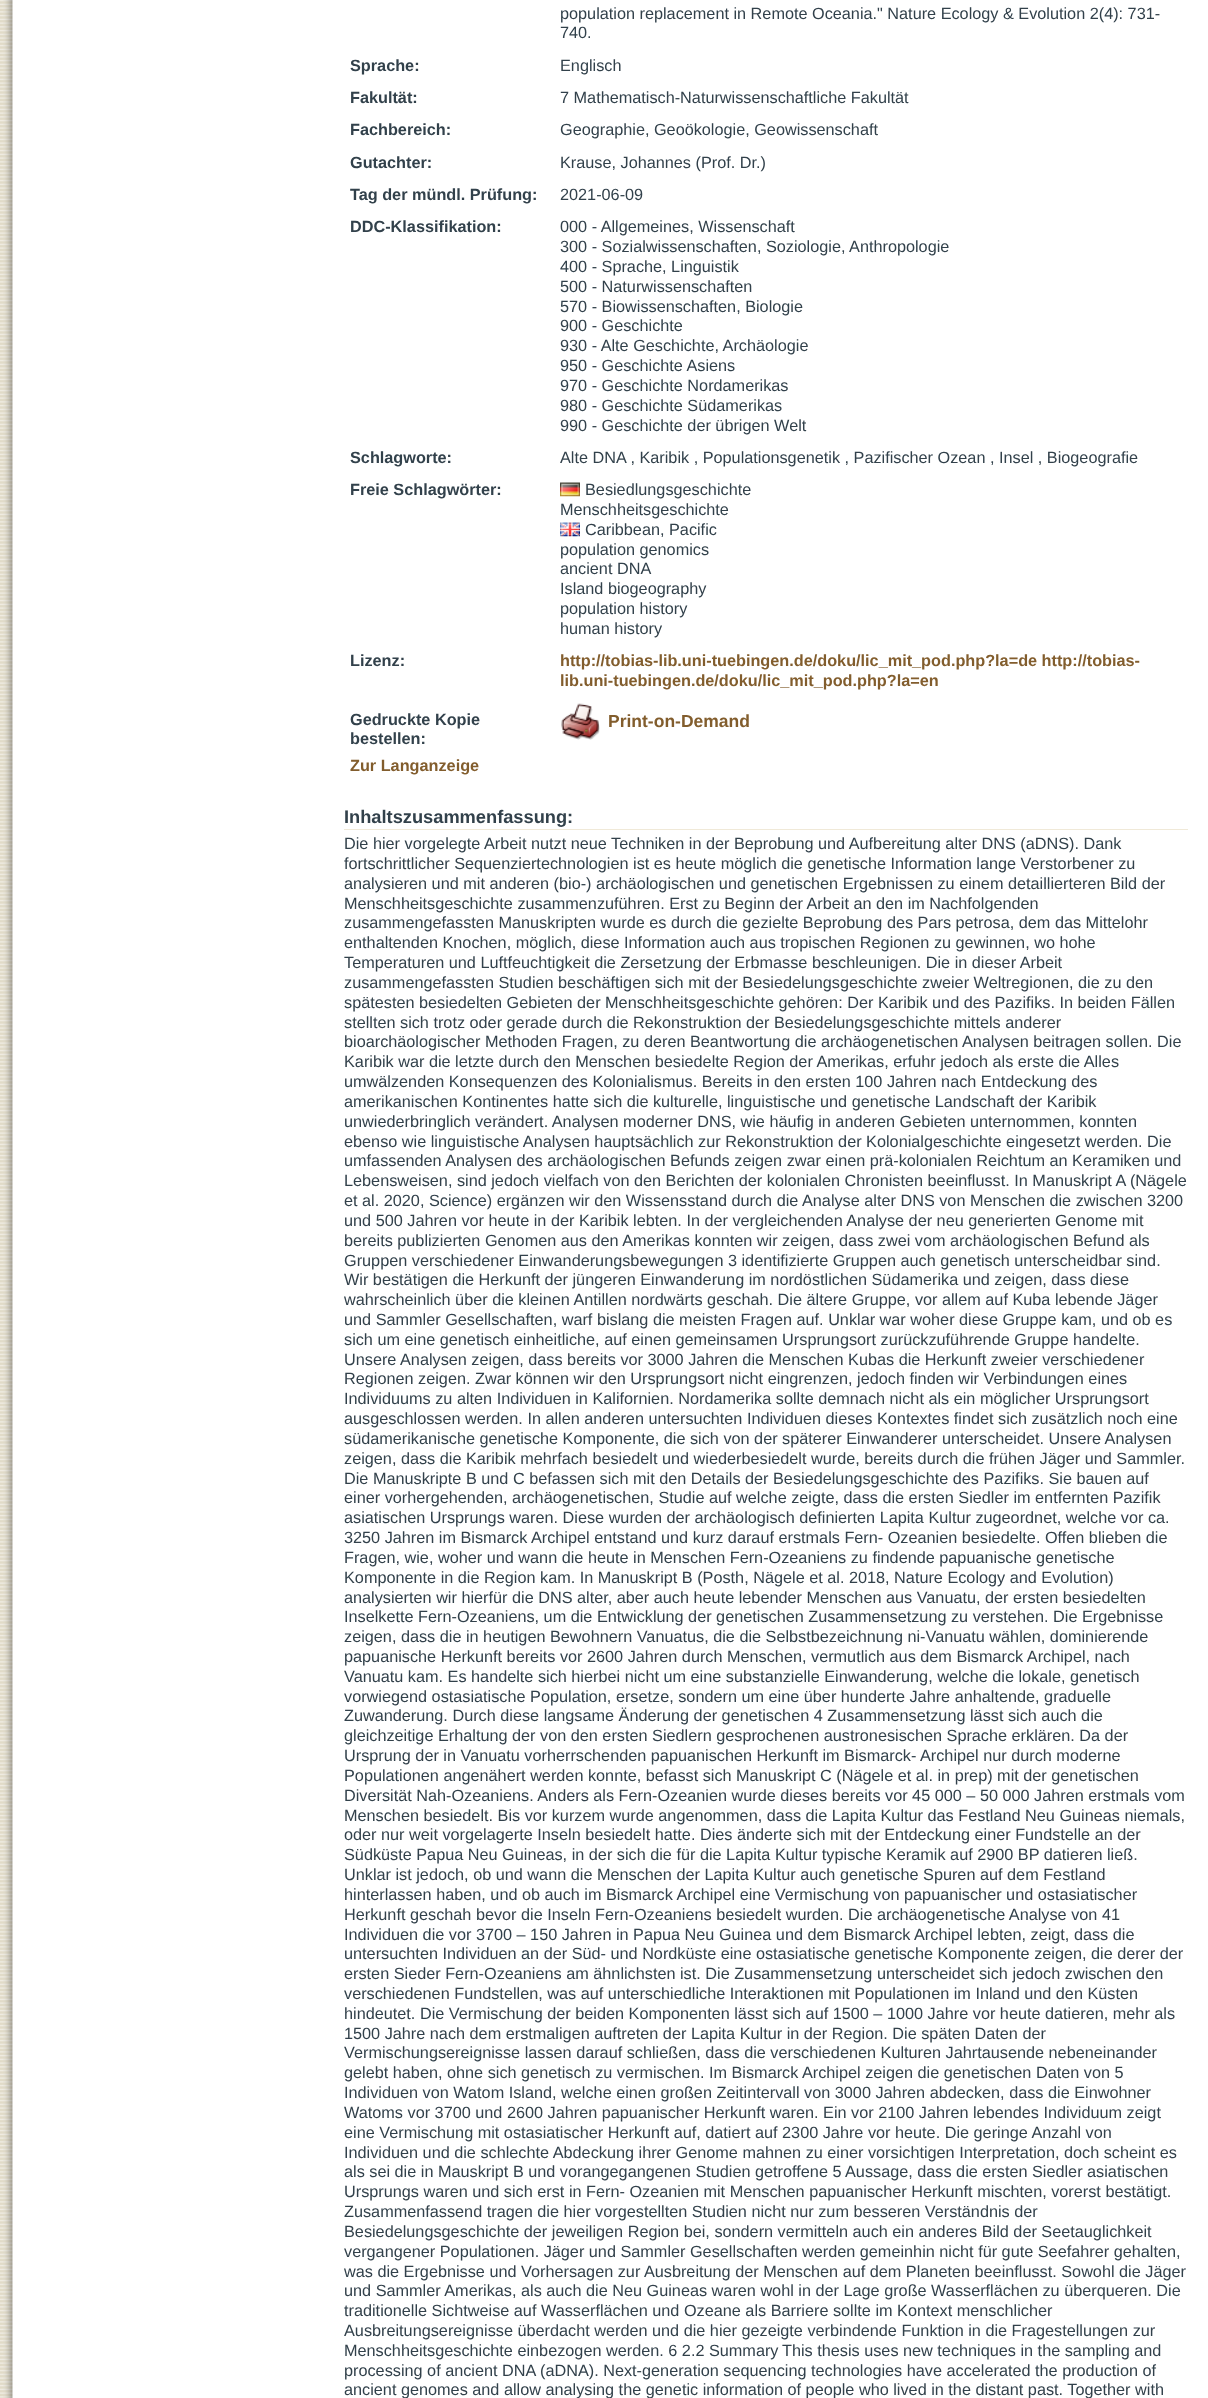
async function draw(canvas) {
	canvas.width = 1208;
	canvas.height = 2398;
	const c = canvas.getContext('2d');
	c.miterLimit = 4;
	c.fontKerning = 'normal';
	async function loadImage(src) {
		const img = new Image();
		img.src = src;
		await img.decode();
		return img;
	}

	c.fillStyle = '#fff';
	c.fillRect(0, 0, 1208, 2398);
	c.drawImage(await loadImage('img1.png'), 0, 0, 3, 2398);
	c.drawImage(await loadImage('img2.png'), 3, 0, 1205, 2398);
	c.font = '16.25px Liberation Sans';
	c.fillStyle = '#32414b';
	c.fillText('population replacement in Remote Oceania." Nature Ecology & Evolution 2(4): 731-', 560, 19);
	c.fillText('740.', 560, 38);
	c.font = 'bold 16.25px Liberation Sans';
	c.fillText('Sprache:', 350, 71);
	c.font = '16.25px Liberation Sans';
	c.fillText('Englisch', 560, 71);
	c.font = 'bold 16.25px Liberation Sans';
	c.fillText('Fakultät:', 350, 103);
	c.font = '16.25px Liberation Sans';
	c.fillText('7 Mathematisch-Naturwissenschaftliche Fakultät', 560, 103);
	c.font = 'bold 16.25px Liberation Sans';
	c.fillText('Fachbereich:', 350, 135);
	c.font = '16.25px Liberation Sans';
	c.fillText('Geographie, Geoökologie, Geowissenschaft', 560, 135);
	c.font = 'bold 16.25px Liberation Sans';
	c.fillText('Gutachter:', 350, 168);
	c.font = '16.25px Liberation Sans';
	c.fillText('Krause, Johannes (Prof. Dr.)', 560, 168);
	c.font = 'bold 16.25px Liberation Sans';
	c.fillText('Tag der mündl. Prüfung:', 350, 200);
	c.font = '16.25px Liberation Sans';
	c.fillText('2021-06-09', 560, 200);
	c.font = 'bold 16.25px Liberation Sans';
	c.fillText('DDC-Klassifikation:', 350, 232);
	c.font = '16.25px Liberation Sans';
	for (const [text, x, y] of [
		['000 - Allgemeines, Wissenschaft', 560, 232],
		['300 - Sozialwissenschaften, Soziologie, Anthropologie', 560, 252],
		['400 - Sprache, Linguistik', 560, 272],
		['500 - Naturwissenschaften', 560, 292],
		['570 - Biowissenschaften, Biologie', 560, 312],
		['900 - Geschichte', 560, 331],
		['930 - Alte Geschichte, Archäologie', 560, 351],
		['950 - Geschichte Asiens', 560, 371],
		['970 - Geschichte Nordamerikas', 560, 391],
		['980 - Geschichte Südamerikas', 560, 411],
		['990 - Geschichte der übrigen Welt', 560, 431],
	]) {
		c.fillText(text, x, y);
	}
	c.font = 'bold 16.25px Liberation Sans';
	c.fillText('Schlagworte:', 350, 463);
	c.font = '16.25px Liberation Sans';
	c.fillText('Alte DNA , Karibik , Populationsgenetik , Pazifischer Ozean , Insel , Biogeografie', 560, 463);
	c.font = 'bold 16.25px Liberation Sans';
	c.fillText('Freie Schlagwörter:', 350, 495);
	c.drawImage(await loadImage('img3.png'), 560, 482, 20, 15);
	c.font = '16.25px Liberation Sans';
	c.fillText('Besiedlungsgeschichte', 585, 495);
	c.fillText('Menschheitsgeschichte', 560, 515);
	c.drawImage(await loadImage('img4.png'), 560, 522, 20, 15);
	for (const [text, x, y] of [
		['Caribbean, Pacific', 585, 535],
		['population genomics', 560, 555],
		['ancient DNA', 560, 574],
		['Island biogeography', 560, 594],
		['population history', 560, 614],
		['human history', 560, 634],
	]) {
		c.fillText(text, x, y);
	}
	c.font = 'bold 16.25px Liberation Sans';
	c.fillText('Lizenz:', 350, 666);
	c.fillStyle = '#825d2d';
	c.fillText('http://tobias-lib.uni-tuebingen.de/doku/lic_mit_pod.php?la=de http://tobias-', 560, 666);
	c.fillText('lib.uni-tuebingen.de/doku/lic_mit_pod.php?la=en', 560, 686);
	c.fillStyle = '#32414b';
	c.fillText('Gedruckte Kopie', 350, 725);
	c.fillText('bestellen:', 350, 744);
	c.drawImage(await loadImage('img5.png'), 561, 703, 39, 37);
	c.font = 'bold 17.5px Liberation Sans';
	c.fillStyle = '#825d2d';
	c.fillText('Print-on-Demand', 608, 727);
	c.font = 'bold 16.25px Liberation Sans';
	c.fillText('Zur Langanzeige', 350, 771);
	c.fillStyle = '#f0e9d8';
	c.fillRect(344, 829, 844, 1);
	c.font = 'bold 18.25px Liberation Sans';
	c.fillStyle = '#32414b';
	c.fillText('Inhaltszusammenfassung:', 344, 823);
	c.font = '16.25px Liberation Sans';
	for (const [text, x, y] of [
		['Die hier vorgelegte Arbeit nutzt neue Techniken in der Beprobung und Aufbereitung alter DNS (aDNS). Dank', 344, 849],
		['fortschrittlicher Sequenziertechnologien ist es heute möglich die genetische Information lange Verstorbener zu', 344, 869],
		['analysieren und mit anderen (bio-) archäologischen und genetischen Ergebnissen zu einem detaillierteren Bild der', 344, 889],
		['Menschheitsgeschichte zusammenzuführen. Erst zu Beginn der Arbeit an den im Nachfolgenden', 344, 909],
		['zusammengefassten Manuskripten wurde es durch die gezielte Beprobung des Pars petrosa, dem das Mittelohr', 344, 928],
		['enthaltenden Knochen, möglich, diese Information auch aus tropischen Regionen zu gewinnen, wo hohe', 344, 948],
		['Temperaturen und Luftfeuchtigkeit die Zersetzung der Erbmasse beschleunigen. Die in dieser Arbeit', 344, 968],
		['zusammengefassten Studien beschäftigen sich mit der Besiedelungsgeschichte zweier Weltregionen, die zu den', 344, 988],
		['spätesten besiedelten Gebieten der Menschheitsgeschichte gehören: Der Karibik und des Pazifiks. In beiden Fällen', 344, 1008],
		['stellten sich trotz oder gerade durch die Rekonstruktion der Besiedelungsgeschichte mittels anderer', 344, 1028],
		['bioarchäologischer Methoden Fragen, zu deren Beantwortung die archäogenetischen Analysen beitragen sollen. Die', 344, 1047],
		['Karibik war die letzte durch den Menschen besiedelte Region der Amerikas, erfuhr jedoch als erste die Alles', 344, 1067],
		['umwälzenden Konsequenzen des Kolonialismus. Bereits in den ersten 100 Jahren nach Entdeckung des', 344, 1087],
		['amerikanischen Kontinentes hatte sich die kulturelle, linguistische und genetische Landschaft der Karibik', 344, 1107],
		['unwiederbringlich verändert. Analysen moderner DNS, wie häufig in anderen Gebieten unternommen, konnten', 344, 1127],
		['ebenso wie linguistische Analysen hauptsächlich zur Rekonstruktion der Kolonialgeschichte eingesetzt werden. Die', 344, 1147],
		['umfassenden Analysen des archäologischen Befunds zeigen zwar einen prä-kolonialen Reichtum an Keramiken und', 344, 1166],
		['Lebensweisen, sind jedoch vielfach von den Berichten der kolonialen Chronisten beeinflusst. In Manuskript A (Nägele', 344, 1186],
		['et al. 2020, Science) ergänzen wir den Wissensstand durch die Analyse alter DNS von Menschen die zwischen 3200', 344, 1206],
		['und 500 Jahren vor heute in der Karibik lebten. In der vergleichenden Analyse der neu generierten Genome mit', 344, 1226],
		['bereits publizierten Genomen aus den Amerikas konnten wir zeigen, dass zwei vom archäologischen Befund als', 344, 1246],
		['Gruppen verschiedener Einwanderungsbewegungen 3 identifizierte Gruppen auch genetisch unterscheidbar sind.', 344, 1266],
		['Wir bestätigen die Herkunft der jüngeren Einwanderung im nordöstlichen Südamerika und zeigen, dass diese', 344, 1285],
		['wahrscheinlich über die kleinen Antillen nordwärts geschah. Die ältere Gruppe, vor allem auf Kuba lebende Jäger', 344, 1305],
		['und Sammler Gesellschaften, warf bislang die meisten Fragen auf. Unklar war woher diese Gruppe kam, und ob es', 344, 1325],
		['sich um eine genetisch einheitliche, auf einen gemeinsamen Ursprungsort zurückzuführende Gruppe handelte.', 344, 1345],
		['Unsere Analysen zeigen, dass bereits vor 3000 Jahren die Menschen Kubas die Herkunft zweier verschiedener', 344, 1365],
		['Regionen zeigen. Zwar können wir den Ursprungsort nicht eingrenzen, jedoch finden wir Verbindungen eines', 344, 1384],
		['Individuums zu alten Individuen in Kalifornien. Nordamerika sollte demnach nicht als ein möglicher Ursprungsort', 344, 1404],
		['ausgeschlossen werden. In allen anderen untersuchten Individuen dieses Kontextes findet sich zusätzlich noch eine', 344, 1424],
		['südamerikanische genetische Komponente, die sich von der späterer Einwanderer unterscheidet. Unsere Analysen', 344, 1444],
		['zeigen, dass die Karibik mehrfach besiedelt und wiederbesiedelt wurde, bereits durch die frühen Jäger und Sammler.', 344, 1464],
		['Die Manuskripte B und C befassen sich mit den Details der Besiedelungsgeschichte des Pazifiks. Sie bauen auf', 344, 1484],
		['einer vorhergehenden, archäogenetischen, Studie auf welche zeigte, dass die ersten Siedler im entfernten Pazifik', 344, 1503],
		['asiatischen Ursprungs waren. Diese wurden der archäologisch definierten Lapita Kultur zugeordnet, welche vor ca.', 344, 1523],
		['3250 Jahren im Bismarck Archipel entstand und kurz darauf erstmals Fern- Ozeanien besiedelte. Offen blieben die', 344, 1543],
		['Fragen, wie, woher und wann die heute in Menschen Fern-Ozeaniens zu findende papuanische genetische', 344, 1563],
		['Komponente in die Region kam. In Manuskript B (Posth, Nägele et al. 2018, Nature Ecology and Evolution)', 344, 1583],
		['analysierten wir hierfür die DNS alter, aber auch heute lebender Menschen aus Vanuatu, der ersten besiedelten', 344, 1603],
		['Inselkette Fern-Ozeaniens, um die Entwicklung der genetischen Zusammensetzung zu verstehen. Die Ergebnisse', 344, 1622],
		['zeigen, dass die in heutigen Bewohnern Vanuatus, die die Selbstbezeichnung ni-Vanuatu wählen, dominierende', 344, 1642],
		['papuanische Herkunft bereits vor 2600 Jahren durch Menschen, vermutlich aus dem Bismarck Archipel, nach', 344, 1662],
		['Vanuatu kam. Es handelte sich hierbei nicht um eine substanzielle Einwanderung, welche die lokale, genetisch', 344, 1682],
		['vorwiegend ostasiatische Population, ersetze, sondern um eine über hunderte Jahre anhaltende, graduelle', 344, 1702],
		['Zuwanderung. Durch diese langsame Änderung der genetischen 4 Zusammensetzung lässt sich auch die', 344, 1721],
		['gleichzeitige Erhaltung der von den ersten Siedlern gesprochenen austronesischen Sprache erklären. Da der', 344, 1741],
		['Ursprung der in Vanuatu vorherrschenden papuanischen Herkunft im Bismarck- Archipel nur durch moderne', 344, 1761],
		['Populationen angenähert werden konnte, befasst sich Manuskript C (Nägele et al. in prep) mit der genetischen', 344, 1781],
		['Diversität Nah-Ozeaniens. Anders als Fern-Ozeanien wurde dieses bereits vor 45 000 – 50 000 Jahren erstmals vom', 344, 1801],
		['Menschen besiedelt. Bis vor kurzem wurde angenommen, dass die Lapita Kultur das Festland Neu Guineas niemals,', 344, 1821],
		['oder nur weit vorgelagerte Inseln besiedelt hatte. Dies änderte sich mit der Entdeckung einer Fundstelle an der', 344, 1840],
		['Südküste Papua Neu Guineas, in der sich die für die Lapita Kultur typische Keramik auf 2900 BP datieren ließ.', 344, 1860],
		['Unklar ist jedoch, ob und wann die Menschen der Lapita Kultur auch genetische Spuren auf dem Festland', 344, 1880],
		['hinterlassen haben, und ob auch im Bismarck Archipel eine Vermischung von papuanischer und ostasiatischer', 344, 1900],
		['Herkunft geschah bevor die Inseln Fern-Ozeaniens besiedelt wurden. Die archäogenetische Analyse von 41', 344, 1920],
		['Individuen die vor 3700 – 150 Jahren in Papua Neu Guinea und dem Bismarck Archipel lebten, zeigt, dass die', 344, 1940],
		['untersuchten Individuen an der Süd- und Nordküste eine ostasiatische genetische Komponente zeigen, die derer der', 344, 1959],
		['ersten Sieder Fern-Ozeaniens am ähnlichsten ist. Die Zusammensetzung unterscheidet sich jedoch zwischen den', 344, 1979],
		['verschiedenen Fundstellen, was auf unterschiedliche Interaktionen mit Populationen im Inland und den Küsten', 344, 1999],
		['hindeutet. Die Vermischung der beiden Komponenten lässt sich auf 1500 – 1000 Jahre vor heute datieren, mehr als', 344, 2019],
		['1500 Jahre nach dem erstmaligen auftreten der Lapita Kultur in der Region. Die späten Daten der', 344, 2039],
		['Vermischungsereignisse lassen darauf schließen, dass die verschiedenen Kulturen Jahrtausende nebeneinander', 344, 2058],
		['gelebt haben, ohne sich genetisch zu vermischen. Im Bismarck Archipel zeigen die genetischen Daten von 5', 344, 2078],
		['Individuen von Watom Island, welche einen großen Zeitintervall von 3000 Jahren abdecken, dass die Einwohner', 344, 2098],
		['Watoms vor 3700 und 2600 Jahren papuanischer Herkunft waren. Ein vor 2100 Jahren lebendes Individuum zeigt', 344, 2118],
		['eine Vermischung mit ostasiatischer Herkunft auf, datiert auf 2300 Jahre vor heute. Die geringe Anzahl von', 344, 2138],
		['Individuen und die schlechte Abdeckung ihrer Genome mahnen zu einer vorsichtigen Interpretation, doch scheint es', 344, 2158],
		['als sei die in Mauskript B und vorangegangenen Studien getroffene 5', 344, 2177],
		['Aussage, dass die ersten Siedler asiatischen', 845, 2177],
		['Ursprungs waren und sich erst in Fern- Ozeanien mit Menschen papuanischer Herkunft mischten, vorerst bestätigt.', 344, 2197],
		['Zusammenfassend tragen die hier vorgestellten Studien nicht nur zum besseren Verständnis der', 344, 2217],
		['Besiedelungsgeschichte der jeweiligen Region bei, sondern vermitteln auch ein anderes Bild der Seetauglichkeit', 344, 2237],
		['vergangener Populationen. Jäger und Sammler Gesellschaften werden gemeinhin nicht für gute Seefahrer gehalten,', 344, 2257],
		['was die Ergebnisse und Vorhersagen zur Ausbreitung der Menschen auf dem Planeten beeinflusst. Sowohl die Jäger', 344, 2277],
		['und Sammler Amerikas, als auch die Neu Guineas waren wohl in der Lage große Wasserflächen zu überqueren. Die', 344, 2296],
		['traditionelle Sichtweise auf Wasserflächen und Ozeane als Barriere sollte im Kontext menschlicher', 344, 2316],
		['Ausbreitungsereignisse überdacht werden und die hier gezeigte verbindende Funktion in die Fragestellungen zur', 344, 2336],
		['Menschheitsgeschichte einbezogen werden. 6 2.2 Summary', 344, 2356],
		['This thesis uses new techniques in the sampling and', 782, 2356],
		['processing of ancient DNA (aDNA). Next-generation sequencing technologies have accelerated the production of', 344, 2376],
		['ancient genomes and allow analysing the genetic information of people who lived in the distant past. Together with', 344, 2395],
	]) {
		c.fillText(text, x, y);
	}
}

draw(document.querySelector('canvas'));
